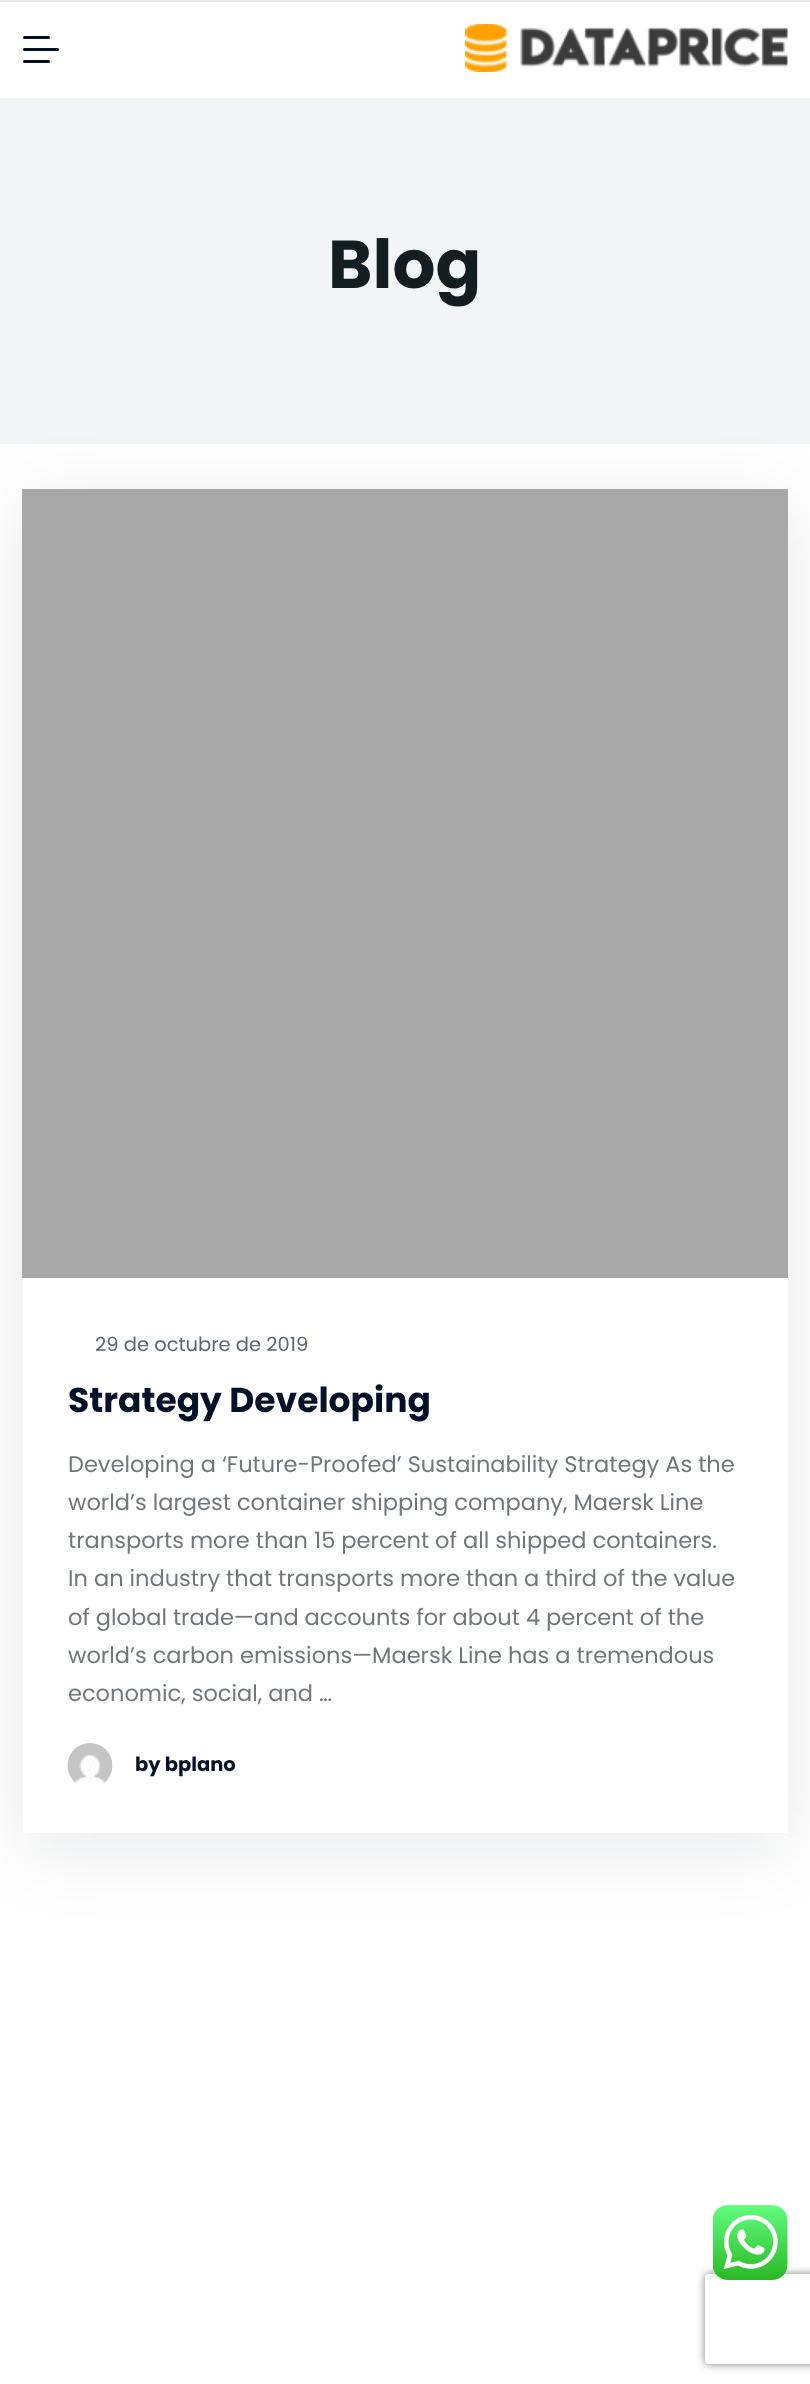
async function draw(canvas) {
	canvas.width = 810;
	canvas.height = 2384;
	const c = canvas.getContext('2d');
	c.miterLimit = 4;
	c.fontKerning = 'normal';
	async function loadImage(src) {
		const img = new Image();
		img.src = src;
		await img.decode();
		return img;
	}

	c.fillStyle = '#fff';
	c.fillRect(0, 0, 810, 2384);
	c.fillStyle = '#e7e8e9';
	c.fillRect(0, 0, 810, 2);
	c.fillStyle = '#041026';
	c.beginPath();
	c.roundRect(23, 48, 36, 3, 1.5);
	c.fill();
	c.beginPath();
	c.roundRect(23, 36, 27, 3, 1.5);
	c.fill();
	c.beginPath();
	c.roundRect(23, 60, 27, 3, 1.5);
	c.fill();
	c.drawImage(await loadImage('img1.png'), 465, 24, 323, 48);
	c.fillStyle = '#f3f4f5';
	c.fillRect(0, 98, 810, 346);
	c.font = 'bold 67.5px Poppins';
	c.fillStyle = '#131c21';
	c.fillText('Blog', 328, 288);
	c.fillStyle = '#04102617';
	c.filter = 'blur(37.5px)';
	c.beginPath();
	c.rect(23, 504, 765, 1344);
	c.fill();
	c.filter = 'none';
	c.fillStyle = '#fff';
	c.fillRect(23, 1278, 765, 555);
	c.fillStyle = '#a8a8a8';
	c.fillRect(22, 489, 766, 789);
	c.font = '19.5px Poppins';
	c.fillStyle = '#5b6674';
	c.fillText('29 de octubre de 2019', 95, 1351);
	c.font = 'bold 34.5px Poppins';
	c.fillStyle = '#041026';
	c.fillText('Strategy Developing', 68, 1412);
	c.font = '22.5px Poppins';
	c.fillStyle = '#71777a';
	for (const [text, x, y] of [
		['Developing a ‘Future-Proofed’ Sustainability Strategy As the', 68, 1472],
		['world’s largest container shipping company, Maersk Line', 68, 1510],
		['transports more than 15 percent of all shipped containers.', 68, 1548],
		['In an industry that transports more than a third of the value', 68, 1586],
		['of global trade—and accounts for about 4 percent of the', 68, 1625],
		['world’s carbon emissions—Maersk Line has a tremendous', 68, 1663],
		['economic, social, and …', 68, 1701],
	]) {
		c.fillText(text, x, y);
	}
	c.drawImage(await loadImage('img2.png'), 67, 1743, 46, 40);
	c.font = 'bold 19.5px Poppins';
	c.fillStyle = '#041026';
	c.fillText('by bplano', 135, 1771);
	c.save();
	c.beginPath();
	c.moveTo(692, 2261);
	c.lineTo(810, 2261);
	c.lineTo(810, 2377);
	c.lineTo(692, 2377);
	c.closePath();
	c.moveTo(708, 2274);
	c.lineTo(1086, 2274);
	c.bezierCurveTo(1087.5, 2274, 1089, 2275.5, 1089, 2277);
	c.lineTo(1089, 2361);
	c.bezierCurveTo(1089, 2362.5, 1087.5, 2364, 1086, 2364);
	c.lineTo(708, 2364);
	c.bezierCurveTo(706.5, 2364, 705, 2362.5, 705, 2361);
	c.lineTo(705, 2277);
	c.bezierCurveTo(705, 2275.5, 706.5, 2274, 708, 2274);
	c.closePath();
	c.clip('evenodd');
	c.fillStyle = '#808080';
	c.filter = 'blur(4px)';
	c.beginPath();
	c.roundRect(705, 2274, 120, 90, 3);
	c.fill();
	c.filter = 'none';
	c.restore();
	c.drawImage(await loadImage('img3.png'), 713, 2205, 75, 75);
}

draw(document.querySelector('canvas'));
